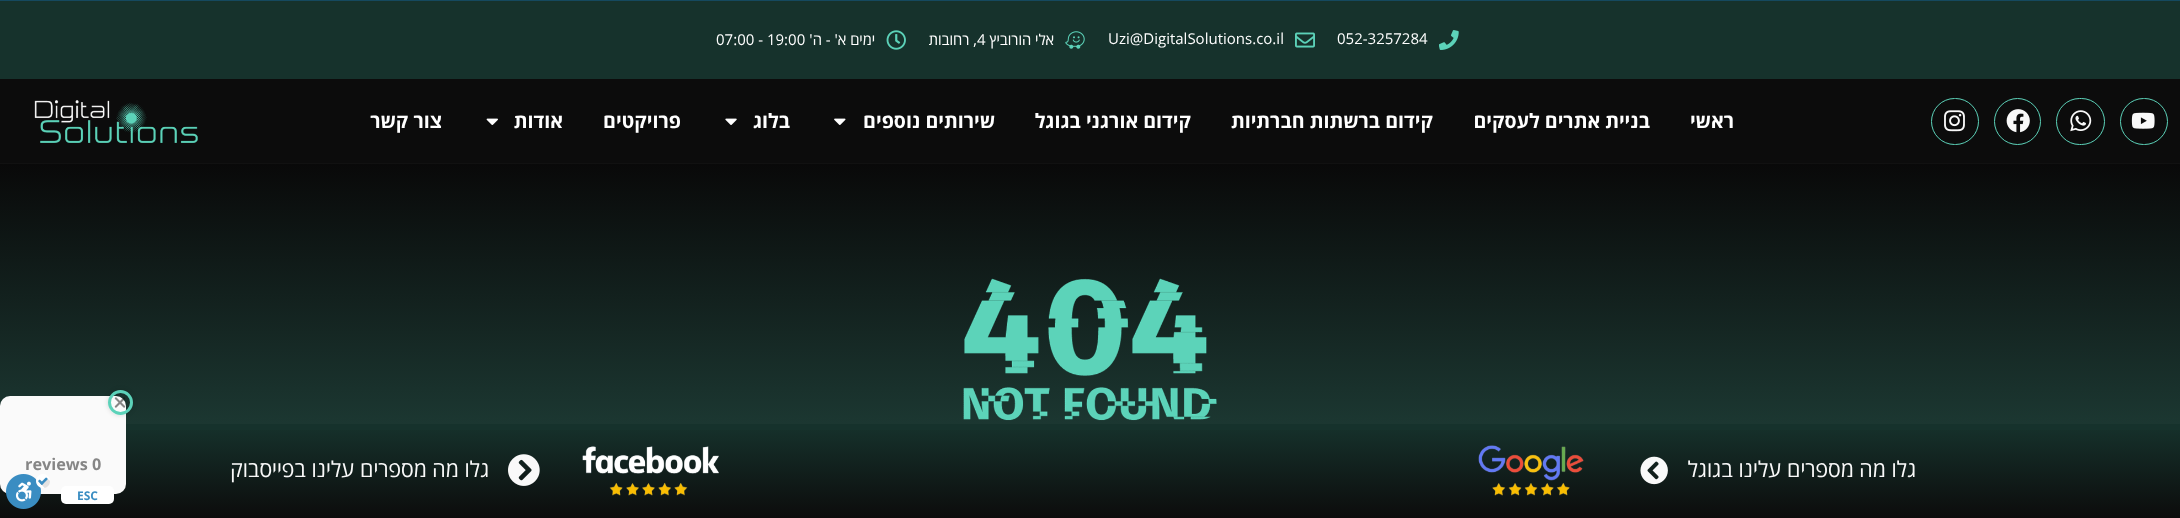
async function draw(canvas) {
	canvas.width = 2180;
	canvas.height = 518;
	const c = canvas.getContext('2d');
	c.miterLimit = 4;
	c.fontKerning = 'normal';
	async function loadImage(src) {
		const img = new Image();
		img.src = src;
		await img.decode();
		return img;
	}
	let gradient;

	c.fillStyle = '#16322c';
	c.fillRect(0, 0, 2180, 518);
	c.drawImage(await loadImage('img1.png'), 1439, 30, 20, 20);
	c.font = '15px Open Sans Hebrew';
	c.fillStyle = '#fff';
	c.fillText('052-3257284', 1337, 44);
	c.drawImage(await loadImage('img2.png'), 1295, 32, 20, 16);
	c.fillText('Uzi@DigitalSolutions.co.il', 1108, 44);
	c.drawImage(await loadImage('img3.png'), 1065, 31, 20, 18);
	c.direction = 'rtl';
	c.fillText('אלי הורוביץ', 1054, 45);
	c.direction = 'ltr';
	c.fillText('4', 977, 45);
	c.direction = 'rtl';
	c.fillText(', רחובות', 977, 45);
	c.drawImage(await loadImage('img4.png'), 886, 30, 20, 20);
	c.fillText('ימים א\' - ה\'', 875, 45);
	c.direction = 'ltr';
	c.fillText('07:00 - 19:00', 716, 45);
	c.fillStyle = '#0c0c0c';
	c.fillRect(0, 79, 2180, 84);
	c.fillStyle = '#111';
	c.fillRect(0, 163, 2180, 1);
	c.beginPath();
	c.roundRect(2120.5, 98.5, 47, 46, 23);
	c.strokeStyle = '#5cd2b9';
	c.stroke();
	c.drawImage(await loadImage('img5.png'), 2131, 112, 24, 17);
	c.beginPath();
	c.roundRect(2056.5, 98.5, 48, 46, 23);
	c.stroke();
	c.drawImage(await loadImage('img6.png'), 2070, 110, 22, 22);
	c.beginPath();
	c.arc(2017.5, 121.5, 23, 0, 2 * Math.PI);
	c.stroke();
	c.drawImage(await loadImage('img7.png'), 2006, 109, 24, 24);
	c.beginPath();
	c.roundRect(1931.5, 98.5, 47, 46, 23);
	c.stroke();
	c.drawImage(await loadImage('img8.png'), 1944, 110, 21, 22);
	c.direction = 'rtl';
	c.font = 'bold 19.6px Open Sans Hebrew';
	c.fillStyle = '#fff';
	for (const [text, x, y] of [
		['ראשי', 1734, 128],
		['בניית אתרים לעסקים', 1650, 128],
		['קידום ברשתות חברתיות', 1433, 128],
		['קידום אורגני בגוגל', 1191, 128],
		['שירותים נוספים', 995, 128],
	]) {
		c.fillText(text, x, y);
	}
	c.drawImage(await loadImage('img9.png'), 834, 118, 12, 7);
	c.fillText('בלוג', 790, 128);
	c.drawImage(await loadImage('img10.png'), 725, 118, 12, 7);
	c.fillText('פרויקטים', 681, 128);
	c.fillText('אודות', 563, 128);
	c.drawImage(await loadImage('img11.png'), 486, 118, 12, 7);
	c.fillText('צור קשר', 442, 128);
	c.drawImage(await loadImage('img12.png'), 34, 100, 164, 43);
	gradient = c.createLinearGradient(1090, 164, 1090, 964);
	gradient.addColorStop(0, '#090909');
	gradient.addColorStop(1, '#429785');
	c.fillStyle = gradient;
	c.fillRect(0, 164, 2180, 260);
	c.drawImage(await loadImage('img13.png'), 963, 278, 254, 143);
	gradient = c.createLinearGradient(1090, 424, 1090, 518);
	gradient.addColorStop(0, '#16322c');
	gradient.addColorStop(1, '#0c0c0c');
	c.fillStyle = gradient;
	c.fillRect(0, 430, 2180, 88);
	c.font = '21.75px Open Sans Hebrew';
	c.fillStyle = '#f9f9f9';
	c.fillText('גלו מה מספרים עלינו בגוגל', 1916, 477);
	c.drawImage(await loadImage('img14.png'), 1640, 456, 28, 29);
	c.drawImage(await loadImage('img15.png'), 1478, 445, 106, 51);
	c.drawImage(await loadImage('img16.png'), 582, 446, 137, 50);
	c.drawImage(await loadImage('img17.png'), 508, 454, 32, 32);
	c.fillText('גלו מה מספרים עלינו בפייסבוק', 489, 477);
	c.fillStyle = '#fafafa';
	c.beginPath();
	c.roundRect(0, 396, 126, 98, 10);
	c.fill();
	c.save();
	c.beginPath();
	c.moveTo(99, 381);
	c.lineTo(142, 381);
	c.lineTo(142, 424);
	c.lineTo(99, 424);
	c.closePath();
	c.moveTo(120.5, 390);
	c.bezierCurveTo(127.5, 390, 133, 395.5, 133, 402.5);
	c.bezierCurveTo(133, 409.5, 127.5, 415, 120.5, 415);
	c.bezierCurveTo(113.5, 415, 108, 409.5, 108, 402.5);
	c.bezierCurveTo(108, 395.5, 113.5, 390, 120.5, 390);
	c.closePath();
	c.clip('evenodd');
	c.fillStyle = '#00000026';
	c.filter = 'blur(2.5px)';
	c.beginPath();
	c.roundRect(108, 390, 25, 25, 12.5);
	c.fill();
	c.filter = 'none';
	c.restore();
	c.beginPath();
	c.arc(120.5, 402.5, 11, 0, 2 * Math.PI);
	c.lineWidth = 3;
	c.stroke();
	c.drawImage(await loadImage('img18.png'), 114, 397, 12, 11);
	c.direction = 'ltr';
	c.font = 'bold 16.25px Open Sans Hebrew';
	c.fillStyle = '#868686';
	c.fillText('reviews 0', 25, 470);
	c.fillStyle = '#15495f';
	c.fillRect(0, 0, 2180, 1);
	c.fillStyle = '#fff';
	c.beginPath();
	c.roundRect(61, 486, 53, 18, 5);
	c.fill();
	c.font = 'bold 12px Open Sans Hebrew';
	c.fillStyle = '#3a8dc2';
	c.fillText('ESC', 77, 500);
	c.drawImage(await loadImage('img19.png'), 6, 474, 44, 35);
}

draw(document.querySelector('canvas'));
